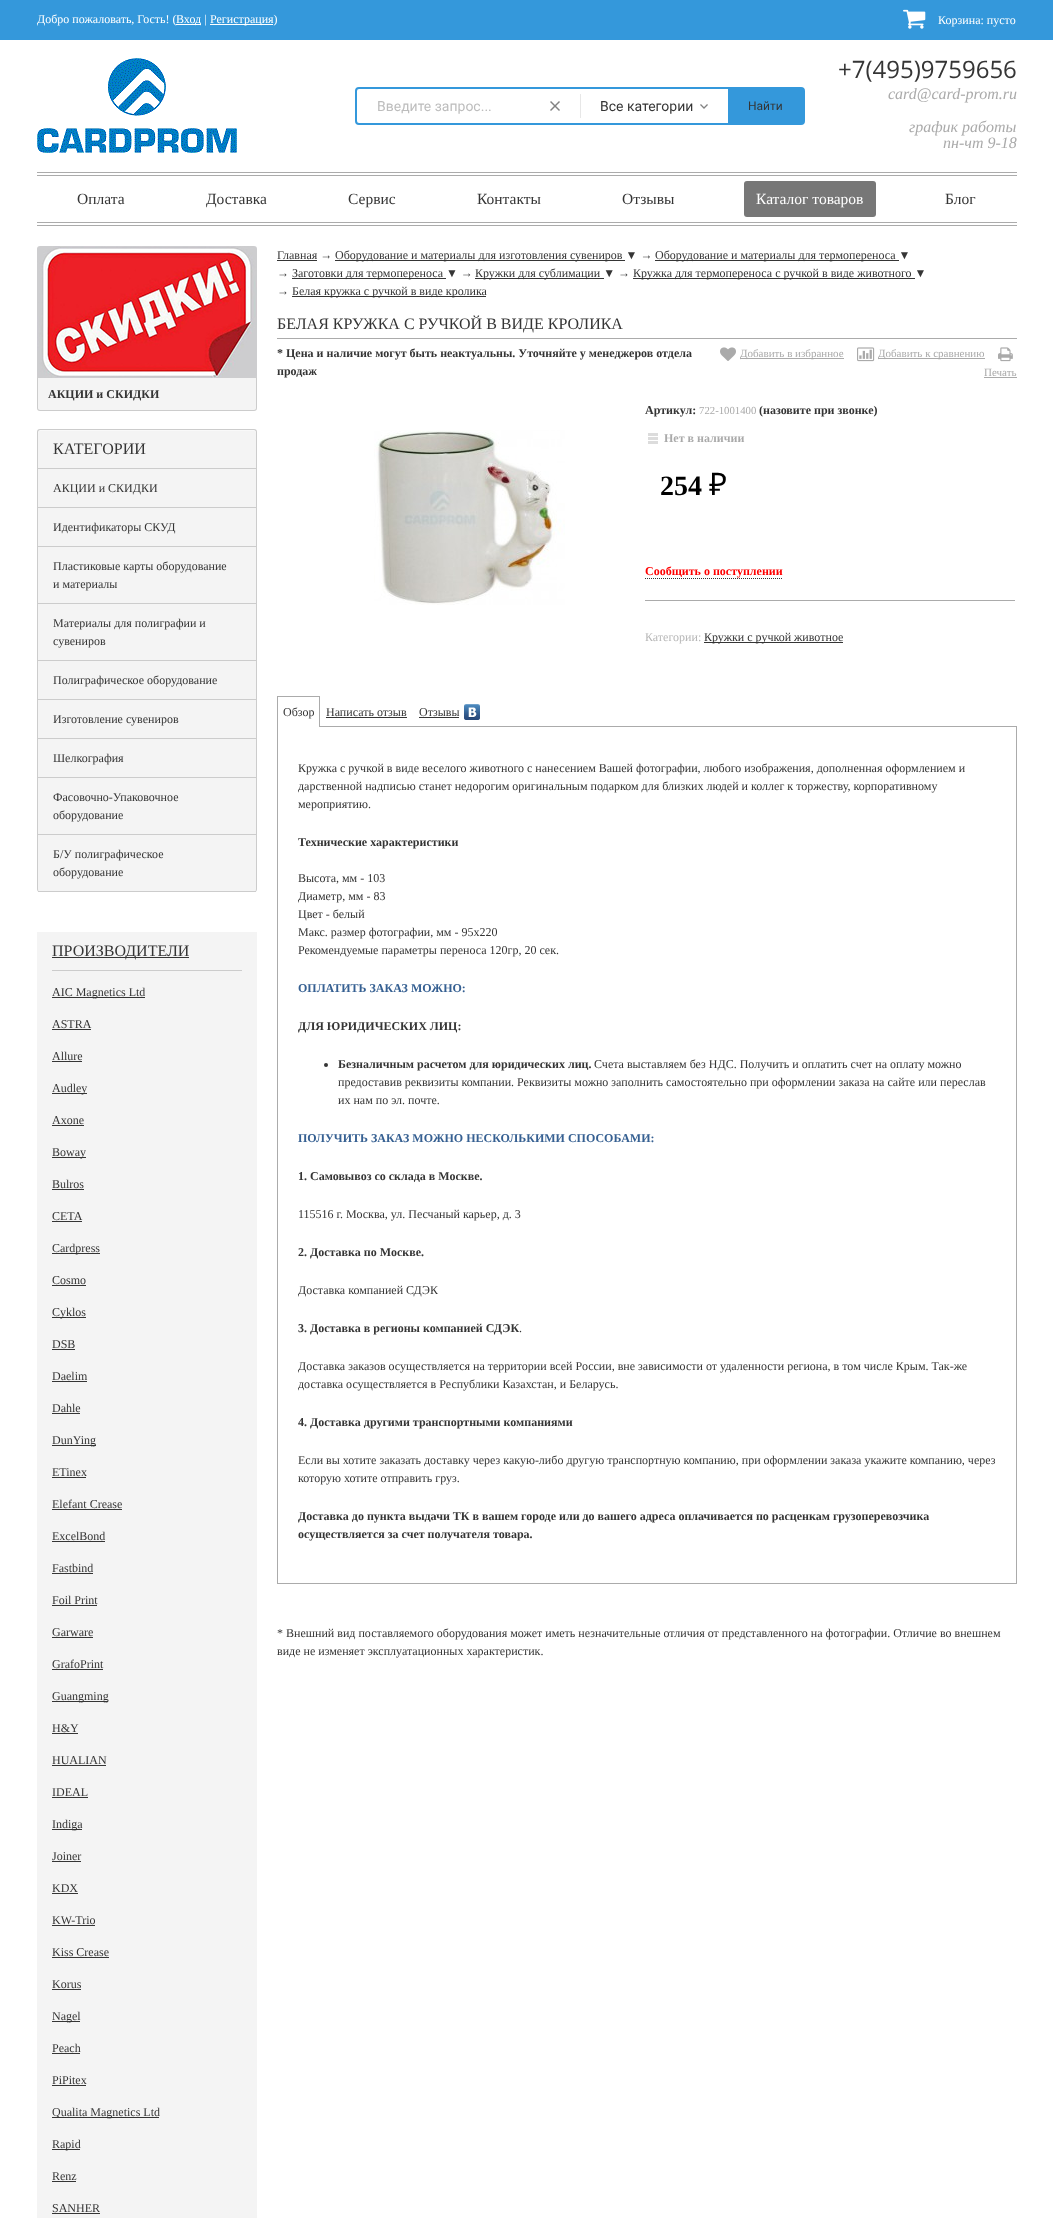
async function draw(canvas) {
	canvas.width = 1053;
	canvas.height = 2218;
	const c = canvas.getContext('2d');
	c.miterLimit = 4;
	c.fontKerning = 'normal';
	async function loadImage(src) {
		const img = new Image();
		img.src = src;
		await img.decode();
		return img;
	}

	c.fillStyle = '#fff';
	c.fillRect(0, 0, 1053, 2218);
	c.fillStyle = '#3498db';
	c.fillRect(0, 0, 1053, 40);
	c.font = '12px Liberation Serif';
	c.fillStyle = '#fff';
	c.fillText('Добро пожаловать, Гость! (', 37, 23);
	c.fillRect(176, 24, 25, 1);
	c.fillText('Вход |', 176, 23);
	c.fillRect(210, 24, 63, 1);
	c.fillText('Регистрация)', 210, 23);
	c.drawImage(await loadImage('img1.png'), 903, 9, 23, 20);
	c.fillText('Корзина: пусто', 938, 24);
	c.drawImage(await loadImage('img2.png'), 37, 58, 200, 95);
	c.beginPath();
	c.roundRect(356, 88, 448, 36, 3);
	c.strokeStyle = '#3498db';
	c.lineWidth = 2;
	c.stroke();
	c.font = '14px Roboto';
	c.fillStyle = '#bdbdbd';
	c.fillText('Введите запрос...', 377, 111);
	c.drawImage(await loadImage('img3.png'), 550, 101, 10, 10);
	c.fillStyle = '#e7e7e7';
	c.fillRect(580, 94, 1, 24);
	c.fillStyle = '#353535';
	c.fillText('Все категории', 600, 111);
	c.drawImage(await loadImage('img4.png'), 700, 104, 8, 5);
	c.fillStyle = '#3498db';
	c.fillRect(728, 89, 75, 34);
	c.font = '12px Roboto';
	c.fillStyle = '#353535';
	c.fillText('Найти', 748, 110);
	c.font = '24px Open Sans';
	c.fillText('+7(495)9759656', 838, 78);
	c.font = 'italic 16px Liberation Serif';
	c.fillStyle = '#aaa';
	for (const [text, x, y] of [
		['card@card-prom.ru', 888, 99],
		['график работы', 909, 132],
		['пн-чт 9-18', 943, 148],
	]) {
		c.fillText(text, x, y);
	}
	for (const [x, y, w, h, color] of [
		[37, 172, 980, 1, '#ababab'],
		[37, 175, 980, 1, '#ababab'],
		[37, 222, 980, 1, '#ababab'],
		[37, 225, 980, 1, '#ababab'],
	]) {
		c.fillStyle = color;
		c.fillRect(x, y, w, h);
	}
	c.font = '15.5px Liberation Serif';
	c.fillStyle = '#353535';
	for (const [text, x, y] of [
		['Оплата', 77, 204],
		['Доставка', 206, 204],
		['Сервис', 348, 204],
		['Контакты', 477, 204],
		['Отзывы', 622, 204],
	]) {
		c.fillText(text, x, y);
	}
	c.fillStyle = '#777';
	c.beginPath();
	c.roundRect(744, 181, 132, 36, 3);
	c.fill();
	c.fillStyle = '#fff';
	c.fillText('Каталог товаров', 756, 204);
	c.fillStyle = '#353535';
	c.fillText('Блог', 945, 204);
	c.drawImage(await loadImage('img5.png'), 37, 246, 220, 132);
	c.fillStyle = '#f4f4f4';
	c.beginPath();
	c.roundRect(38, 378, 218, 32, [0, 0, 2, 2]);
	c.fill();
	c.fillStyle = '#ccc';
	c.beginPath();
	c.moveTo(37, 378);
	c.lineTo(257, 378);
	c.lineTo(257, 408);
	c.bezierCurveTo(257, 410, 256, 411, 254, 411);
	c.lineTo(40, 411);
	c.bezierCurveTo(38, 411, 37, 410, 37, 408);
	c.closePath();
	c.moveTo(38, 378);
	c.lineTo(256, 378);
	c.lineTo(256, 408);
	c.bezierCurveTo(256, 409, 255, 410, 254, 410);
	c.lineTo(40, 410);
	c.bezierCurveTo(39, 410, 38, 409, 38, 408);
	c.closePath();
	c.fill('evenodd');
	c.font = 'bold 12px Liberation Serif';
	c.fillStyle = '#353535';
	c.fillText('АКЦИИ и СКИДКИ', 48, 398);
	c.fillStyle = '#f4f4f4';
	c.beginPath();
	c.moveTo(40, 430);
	c.lineTo(254, 430);
	c.bezierCurveTo(255, 430, 256, 431, 256, 432);
	c.lineTo(256, 889);
	c.bezierCurveTo(256, 891, 255, 892, 254, 892);
	c.lineTo(40, 892);
	c.bezierCurveTo(39, 892, 38, 891, 38, 889);
	c.lineTo(38, 432);
	c.bezierCurveTo(38, 431, 39, 430, 40, 430);
	c.closePath();
	c.fill();
	c.fillStyle = '#f9f9f9';
	c.beginPath();
	c.moveTo(40, 431);
	c.lineTo(254, 431);
	c.bezierCurveTo(255, 431, 256, 432, 256, 433);
	c.bezierCurveTo(256, 432, 256, 430, 254, 430);
	c.lineTo(40, 430);
	c.lineTo(39, 431);
	c.lineTo(38, 433);
	c.bezierCurveTo(38, 432, 39, 431, 40, 431);
	c.closePath();
	c.fill();
	c.fillStyle = '#ccc';
	c.beginPath();
	c.moveTo(40, 429);
	c.lineTo(254, 429);
	c.bezierCurveTo(256, 429, 257, 430, 257, 432);
	c.lineTo(257, 889);
	c.bezierCurveTo(257, 891, 256, 892, 254, 892);
	c.lineTo(40, 892);
	c.bezierCurveTo(38, 892, 37, 891, 37, 889);
	c.lineTo(37, 432);
	c.bezierCurveTo(37, 430, 38, 429, 40, 429);
	c.closePath();
	c.moveTo(40, 430);
	c.lineTo(254, 430);
	c.bezierCurveTo(255, 430, 256, 431, 256, 432);
	c.lineTo(256, 889);
	c.bezierCurveTo(256, 891, 255, 892, 254, 892);
	c.lineTo(40, 892);
	c.bezierCurveTo(39, 892, 38, 891, 38, 889);
	c.lineTo(38, 432);
	c.bezierCurveTo(38, 431, 39, 430, 40, 430);
	c.closePath();
	c.fill('evenodd');
	c.fillRect(38, 468, 218, 1);
	c.font = '16px Liberation Serif';
	c.fillStyle = '#353535';
	c.fillText('КАТЕГОРИИ', 53, 454);
	c.fillStyle = '#ccc';
	c.fillRect(38, 507, 218, 1);
	c.font = '12px Liberation Serif';
	c.fillStyle = '#353535';
	c.fillText('АКЦИИ и СКИДКИ', 53, 492);
	c.fillStyle = '#ccc';
	c.fillRect(38, 546, 218, 1);
	c.fillStyle = '#353535';
	c.fillText('Идентификаторы СКУД', 53, 531);
	c.fillStyle = '#ccc';
	c.fillRect(38, 603, 218, 1);
	c.fillStyle = '#353535';
	c.fillText('Пластиковые карты оборудование', 53, 570);
	c.fillText('и материалы', 53, 588);
	c.fillStyle = '#ccc';
	c.fillRect(38, 660, 218, 1);
	c.fillStyle = '#353535';
	c.fillText('Материалы для полиграфии и', 53, 627);
	c.fillText('сувениров', 53, 645);
	c.fillStyle = '#ccc';
	c.fillRect(38, 699, 218, 1);
	c.fillStyle = '#353535';
	c.fillText('Полиграфическое оборудование', 53, 684);
	c.fillStyle = '#ccc';
	c.fillRect(38, 738, 218, 1);
	c.fillStyle = '#353535';
	c.fillText('Изготовление сувениров', 53, 723);
	c.fillStyle = '#ccc';
	c.fillRect(38, 777, 218, 1);
	c.fillStyle = '#353535';
	c.fillText('Шелкография', 53, 762);
	c.fillStyle = '#ccc';
	c.fillRect(38, 834, 218, 1);
	c.fillStyle = '#353535';
	c.fillText('Фасовочно-Упаковочное', 53, 801);
	c.fillText('оборудование', 53, 819);
	c.fillStyle = '#ccc';
	c.fillRect(38, 891, 218, 1);
	c.fillStyle = '#353535';
	c.fillText('Б/У полиграфическое', 53, 858);
	c.fillText('оборудование', 53, 876);
	for (const [x, y, w, h, color] of [
		[37, 932, 220, 1286, '#f4f4f4'],
		[52, 970, 190, 1, '#ccc'],
		[52, 957, 137, 1, '#353535'],
	]) {
		c.fillStyle = color;
		c.fillRect(x, y, w, h);
	}
	c.font = '16px Liberation Serif';
	c.fillText('ПРОИЗВОДИТЕЛИ', 52, 956);
	c.fillRect(52, 997, 93, 1);
	c.font = '12px Liberation Serif';
	c.fillText('AIC Magnetics Ltd', 52, 996);
	c.fillText('ASTRA', 52, 1028);
	c.fillRect(52, 1029, 39, 1);
	c.fillText('Allure', 52, 1060);
	c.fillRect(52, 1061, 30, 1);
	c.fillRect(52, 1093, 35, 1);
	c.fillText('Audley', 52, 1092);
	c.fillText('Axone', 52, 1124);
	c.fillRect(52, 1125, 32, 1);
	c.fillRect(52, 1157, 34, 1);
	c.fillText('Boway', 52, 1156);
	c.fillText('Bulros', 52, 1188);
	c.fillRect(52, 1189, 32, 1);
	c.fillText('CETA', 52, 1220);
	c.fillRect(52, 1221, 30, 1);
	c.fillRect(52, 1253, 48, 1);
	c.fillText('Cardpress', 52, 1252);
	c.fillText('Cosmo', 52, 1284);
	c.fillRect(52, 1285, 34, 1);
	c.fillRect(52, 1317, 34, 1);
	c.fillText('Cyklos', 52, 1316);
	c.fillText('DSB', 52, 1348);
	c.fillRect(52, 1349, 23, 1);
	c.fillText('Daelim', 52, 1380);
	c.fillRect(52, 1381, 35, 1);
	c.fillText('Dahle', 52, 1412);
	c.fillRect(52, 1413, 28, 1);
	c.fillRect(52, 1445, 44, 1);
	c.fillText('DunYing', 52, 1444);
	c.fillText('ETinex', 52, 1476);
	c.fillRect(52, 1477, 34, 1);
	c.fillText('Elefant Crease', 52, 1508);
	c.fillRect(52, 1509, 70, 1);
	c.fillText('ExcelBond', 52, 1540);
	c.fillRect(52, 1541, 53, 1);
	c.fillText('Fastbind', 52, 1572);
	c.fillRect(52, 1573, 41, 1);
	c.fillText('Foil Print', 52, 1604);
	c.fillRect(52, 1605, 45, 1);
	c.fillText('Garware', 52, 1636);
	c.fillRect(52, 1637, 41, 1);
	c.fillText('GrafoPrint', 52, 1668);
	c.fillRect(52, 1669, 51, 1);
	c.fillRect(52, 1701, 56, 1);
	c.fillText('Guangming', 52, 1700);
	c.fillText('H&Y', 52, 1732);
	c.fillRect(52, 1733, 26, 1);
	c.fillText('HUALIAN', 52, 1764);
	c.fillRect(52, 1765, 54, 1);
	c.fillText('IDEAL', 52, 1796);
	c.fillRect(52, 1797, 36, 1);
	c.fillRect(52, 1829, 30, 1);
	c.fillText('Indiga', 52, 1828);
	c.fillText('Joiner', 52, 1860);
	c.fillRect(52, 1861, 29, 1);
	c.fillText('KDX', 52, 1892);
	c.fillRect(52, 1893, 26, 1);
	c.fillText('KW-Trio', 52, 1924);
	c.fillRect(52, 1925, 43, 1);
	c.fillText('Kiss Crease', 52, 1956);
	c.fillRect(52, 1957, 57, 1);
	c.fillText('Korus', 52, 1988);
	c.fillRect(52, 1989, 29, 1);
	c.fillRect(52, 2021, 28, 1);
	c.fillText('Nagel', 52, 2020);
	c.fillText('Peach', 52, 2052);
	c.fillRect(52, 2053, 28, 1);
	c.fillText('PiPitex', 52, 2084);
	c.fillRect(52, 2085, 34, 1);
	c.fillRect(52, 2117, 107, 1);
	c.fillText('Qualita Magnetics Ltd', 52, 2116);
	c.fillRect(52, 2149, 28, 1);
	c.fillText('Rapid', 52, 2148);
	c.fillText('Renz', 52, 2180);
	c.fillRect(52, 2181, 24, 1);
	c.fillText('SANHER', 52, 2212);
	c.fillRect(52, 2213, 48, 1);
	c.fillText('Главная →', 277, 259);
	c.fillRect(277, 260, 40, 1);
	c.fillRect(335, 260, 290, 1);
	c.fillText('Оборудование и материалы для изготовления сувениров ▼ →', 335, 259);
	c.fillRect(655, 260, 244, 1);
	c.fillText('Оборудование и материалы для термопереноса ▼', 655, 259);
	c.fillText('→', 277, 277);
	c.fillRect(292, 278, 154, 1);
	c.fillText('Заготовки для термопереноса ▼ →', 292, 277);
	c.fillRect(475, 278, 129, 1);
	c.fillText('Кружки для сублимации ▼ →', 475, 277);
	c.fillRect(633, 278, 282, 1);
	c.fillText('Кружка для термопереноса с ручкой в виде животного ▼', 633, 277);
	c.fillText('→', 277, 295);
	c.fillRect(292, 296, 194, 1);
	c.fillText('Белая кружка с ручкой в виде кролика', 292, 295);
	c.fillStyle = '#ababab';
	c.fillRect(277, 338, 740, 1);
	c.font = '16px Liberation Serif';
	c.fillStyle = '#353535';
	c.fillText('БЕЛАЯ КРУЖКА С РУЧКОЙ В ВИДЕ КРОЛИКА', 277, 329);
	c.font = 'bold 12px Liberation Serif';
	c.fillText('* Цена и наличие могут быть неактуальны. Уточняйте у менеджеров отдела', 277, 357);
	c.fillText('продаж', 277, 375);
	c.drawImage(await loadImage('img6.png'), 720, 347, 16, 14);
	c.fillStyle = '#aaa';
	c.fillRect(740, 358, 104, 1);
	c.font = '11px Liberation Serif';
	c.fillText('Добавить в избранное', 740, 357);
	c.drawImage(await loadImage('img7.png'), 857, 347, 18, 15);
	c.fillRect(878, 358, 107, 1);
	c.fillText('Добавить к сравнению', 878, 357);
	c.drawImage(await loadImage('img8.png'), 998, 347, 15, 15);
	c.fillText('Печать', 984, 376);
	c.fillRect(984, 377, 33, 1);
	c.drawImage(await loadImage('img9.png'), 374, 430, 191, 175);
	c.font = 'bold 12px Liberation Serif';
	c.fillStyle = '#353535';
	c.fillText('Артикул:', 645, 414);
	c.font = '10.75px Liberation Serif';
	c.fillStyle = '#aaa';
	c.fillText('722-1001400', 699, 414);
	c.font = 'bold 12px Liberation Serif';
	c.fillStyle = '#353535';
	c.fillText('(назовите при звонке)', 759, 414);
	c.drawImage(await loadImage('img10.png'), 648, 433, 10, 11);
	c.fillStyle = '#aaa';
	c.fillText('Нет в наличии', 664, 442);
	c.font = 'bold 28px Liberation Serif';
	c.fillStyle = '#000';
	c.fillText('254', 660, 495);
	c.font = '31px Noto Sans';
	c.fillText('₽', 709, 495);
	c.font = 'bold 12px Liberation Serif';
	c.fillStyle = '#f00';
	c.fillText('Сообщить о поступлении', 645, 575);
	c.beginPath();
	c.moveTo(645, 578.5);
	c.lineTo(782, 578.5);
	c.strokeStyle = '#353535';
	c.lineWidth = 1;
	c.setLineDash([1, 1]);
	c.stroke();
	c.fillStyle = '#ababab';
	c.fillRect(645, 600, 370, 1);
	c.font = '12px Liberation Serif';
	c.fillStyle = '#b7b7b7';
	c.fillText('Категории:', 645, 641);
	c.fillStyle = '#353535';
	c.fillRect(704, 642, 139, 1);
	c.fillText('Кружки с ручкой животное', 704, 641);
	c.strokeStyle = '#ababab';
	c.setLineDash([]);
	c.strokeRect(277.5, 726.5, 739, 857);
	for (const [x, y, w, h, color] of [
		[278, 726, 41, 1, '#fff'],
		[277, 696, 43, 1, '#ababab'],
		[319, 696, 1, 31, '#ababab'],
		[277, 696, 1, 31, '#ababab'],
	]) {
		c.fillStyle = color;
		c.fillRect(x, y, w, h);
	}
	c.fillStyle = '#353535';
	c.fillText('Обзор', 283, 716);
	c.fillText('Написать отзыв', 326, 716);
	c.fillRect(326, 717, 81, 1);
	c.fillText('Отзывы', 419, 716);
	c.fillRect(419, 717, 40, 1);
	c.drawImage(await loadImage('img11.png'), 464, 704, 16, 16);
	for (const [text, x, y] of [
		['Кружка с ручкой в виде веселого животного с нанесением Вашей фотографии, любого изображения, дополненная оформлением и', 298, 772],
		['дарственной надписью станет недорогим оригинальным подарком для близких людей и коллег к торжеству, корпоративному', 298, 790],
		['мероприятию.', 298, 808],
	]) {
		c.fillText(text, x, y);
	}
	c.font = 'bold 12px Liberation Serif';
	c.fillText('Технические характеристики', 298, 846);
	c.font = '12px Liberation Serif';
	for (const [text, x, y] of [
		['Высота, мм - 103', 298, 882],
		['Диаметр, мм - 83', 298, 900],
		['Цвет - белый', 298, 918],
		['Макс. размер фотографии, мм - 95х220', 298, 936],
		['Рекомендуемые параметры переноса 120гр, 20 сек.', 298, 954],
	]) {
		c.fillText(text, x, y);
	}
	c.font = 'bold 12px Liberation Serif';
	c.fillStyle = '#366092';
	c.fillText('ОПЛАТИТЬ ЗАКАЗ МОЖНО:', 298, 992);
	c.fillStyle = '#353535';
	c.fillText('ДЛЯ ЮРИДИЧЕСКИХ ЛИЦ:', 298, 1030);
	c.beginPath();
	c.arc(326, 1065, 2, 0, 2 * Math.PI);
	c.fill();
	c.fillText('Безналичным расчетом для юридических лиц.', 338, 1068);
	c.font = '12px Liberation Serif';
	for (const [text, x, y] of [
		['Счета выставляем без НДС. Получить и оплатить счет на оплату можно', 594, 1068],
		['предоставив реквизиты компании. Реквизиты можно заполнить самостоятельно при оформлении заказа на сайте или переслав', 338, 1086],
		['их нам по эл. почте.', 338, 1104],
	]) {
		c.fillText(text, x, y);
	}
	c.font = 'bold 12px Liberation Serif';
	c.fillStyle = '#366092';
	c.fillText('ПОЛУЧИТЬ ЗАКАЗ МОЖНО НЕСКОЛЬКИМИ СПОСОБАМИ:', 298, 1142);
	c.fillStyle = '#353535';
	c.fillText('1. Самовывоз со склада в Москве.', 298, 1180);
	c.font = '12px Liberation Serif';
	c.fillText('115516 г. Москва, ул. Песчаный карьер, д. 3', 298, 1218);
	c.font = 'bold 12px Liberation Serif';
	c.fillText('2. Доставка по Москве.', 298, 1256);
	c.font = '12px Liberation Serif';
	c.fillText('Доставка компанией СДЭК', 298, 1294);
	c.font = 'bold 12px Liberation Serif';
	c.fillText('3. Доставка в регионы компанией СДЭК', 298, 1332);
	c.font = '12px Liberation Serif';
	for (const [text, x, y] of [
		['.', 519, 1332],
		['Доставка заказов осуществляется на территории всей России, вне зависимости от удаленности региона, в том числе Крым. Так-же', 298, 1370],
		['доставка осуществляется в Республики Казахстан, и Беларусь.', 298, 1388],
	]) {
		c.fillText(text, x, y);
	}
	c.font = 'bold 12px Liberation Serif';
	c.fillText('4. Доставка другими транспортными компаниями', 298, 1426);
	c.font = '12px Liberation Serif';
	c.fillText('Если вы хотите заказать доставку через какую-либо другую транспортную компанию, при оформлении заказа укажите компанию, через', 298, 1464);
	c.fillText('которую хотите отправить груз.', 298, 1482);
	c.font = 'bold 12px Liberation Serif';
	c.fillText('Доставка до пункта выдачи ТК в вашем городе или до вашего адреса оплачивается по расценкам грузоперевозчика', 298, 1520);
	c.fillText('осуществляется за счет получателя товара.', 298, 1538);
	c.font = '12px Liberation Serif';
	c.fillText('* Внешний вид поставляемого оборудования может иметь незначительные отличия от представленного на фотографии. Отличие во внешнем', 277, 1637);
	c.fillText('виде не изменяет эксплуатационных характеристик.', 277, 1655);
}

draw(document.querySelector('canvas'));
